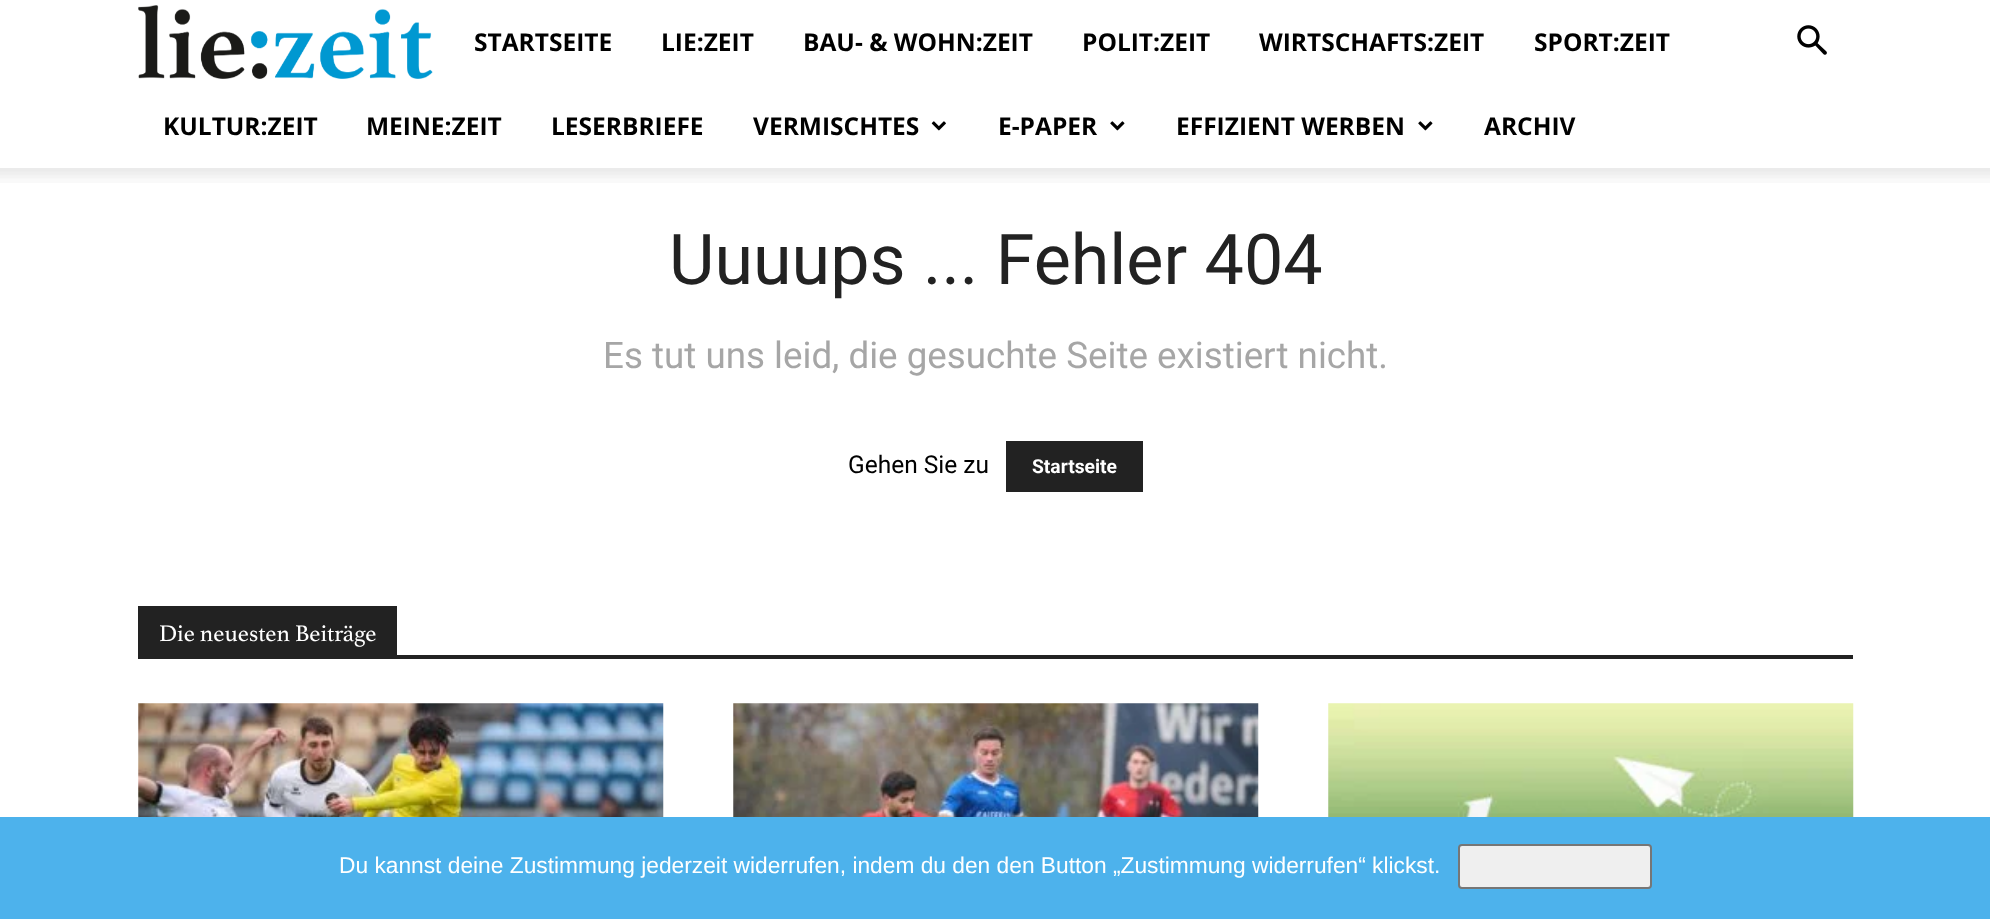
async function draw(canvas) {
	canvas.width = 1990;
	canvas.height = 919;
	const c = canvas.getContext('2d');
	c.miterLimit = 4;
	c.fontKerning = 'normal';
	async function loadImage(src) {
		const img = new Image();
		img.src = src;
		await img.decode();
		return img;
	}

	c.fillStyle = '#fff';
	c.fillRect(0, 0, 1990, 919);
	c.drawImage(await loadImage('img1.png'), 138, 5, 295, 74);
	c.font = 'bold 24.5px Open Sans';
	c.fillStyle = '#000';
	for (const [text, x, y] of [
		['STARTSEITE', 474, 51],
		['LIE:ZEIT', 661, 51],
		['BAU- & WOHN:ZEIT', 803, 51],
		['POLIT:ZEIT', 1082, 51],
		['WIRTSCHAFTS:ZEIT', 1259, 51],
		['SPORT:ZEIT', 1534, 51],
		['KULTUR:ZEIT', 163, 135],
		['MEINE:ZEIT', 366, 135],
		['LESERBRIEFE', 551, 135],
		['VERMISCHTES', 753, 135],
	]) {
		c.fillText(text, x, y);
	}
	c.drawImage(await loadImage('img2.png'), 931, 121, 15, 10);
	c.fillText('E-PAPER', 998, 135);
	c.drawImage(await loadImage('img3.png'), 1110, 121, 15, 10);
	c.fillText('EFFIZIENT WERBEN', 1176, 135);
	c.drawImage(await loadImage('img3.png'), 1418, 121, 15, 10);
	c.fillText('ARCHIV', 1484, 135);
	c.drawImage(await loadImage('img4.png'), 1797, 25, 30, 30);
	c.drawImage(await loadImage('img5.png'), 0, 168, 1990, 15);
	c.font = '70px Roboto';
	c.fillStyle = '#222';
	c.fillText('Uuuups ... Fehler 404', 669, 284);
	c.font = '36.75px Roboto';
	c.fillStyle = '#a6a6a6';
	c.fillText('Es tut uns leid, die gesuchte Seite existiert nicht.', 603, 368);
	c.font = '24.5px Roboto';
	c.fillStyle = '#000';
	c.fillText('Gehen Sie zu', 848, 473);
	c.fillStyle = '#222';
	c.fillRect(1006, 441, 137, 51);
	c.font = 'bold 19.25px Roboto';
	c.fillStyle = '#fff';
	c.fillText('Startseite', 1032, 473);
	c.fillStyle = '#222';
	c.fillRect(138, 655, 1715, 4);
	c.fillRect(138, 606, 259, 49);
	c.font = '24.5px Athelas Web';
	c.fillStyle = '#fff';
	c.fillText('Die neuesten Beiträge', 159, 641);
	c.drawImage(await loadImage('img6.png'), 138, 703, 526, 114);
	c.drawImage(await loadImage('img7.png'), 733, 703, 526, 114);
	c.drawImage(await loadImage('img8.png'), 1328, 703, 526, 114);
	c.fillStyle = '#4db2ec';
	c.fillRect(0, 817, 1990, 102);
	c.font = '22.75px Liberation Sans';
	c.fillStyle = '#fff';
	c.fillText('Du kannst deine Zustimmung jederzeit widerrufen, indem du den den Button „Zustimmung widerrufen“ klickst.', 339, 873);
	c.fillStyle = '#efefef';
	c.beginPath();
	c.roundRect(1459, 845, 192, 43, 3);
	c.fill();
	c.strokeStyle = '#767676';
	c.lineWidth = 2;
	c.stroke();
}

draw(document.querySelector('canvas'));
